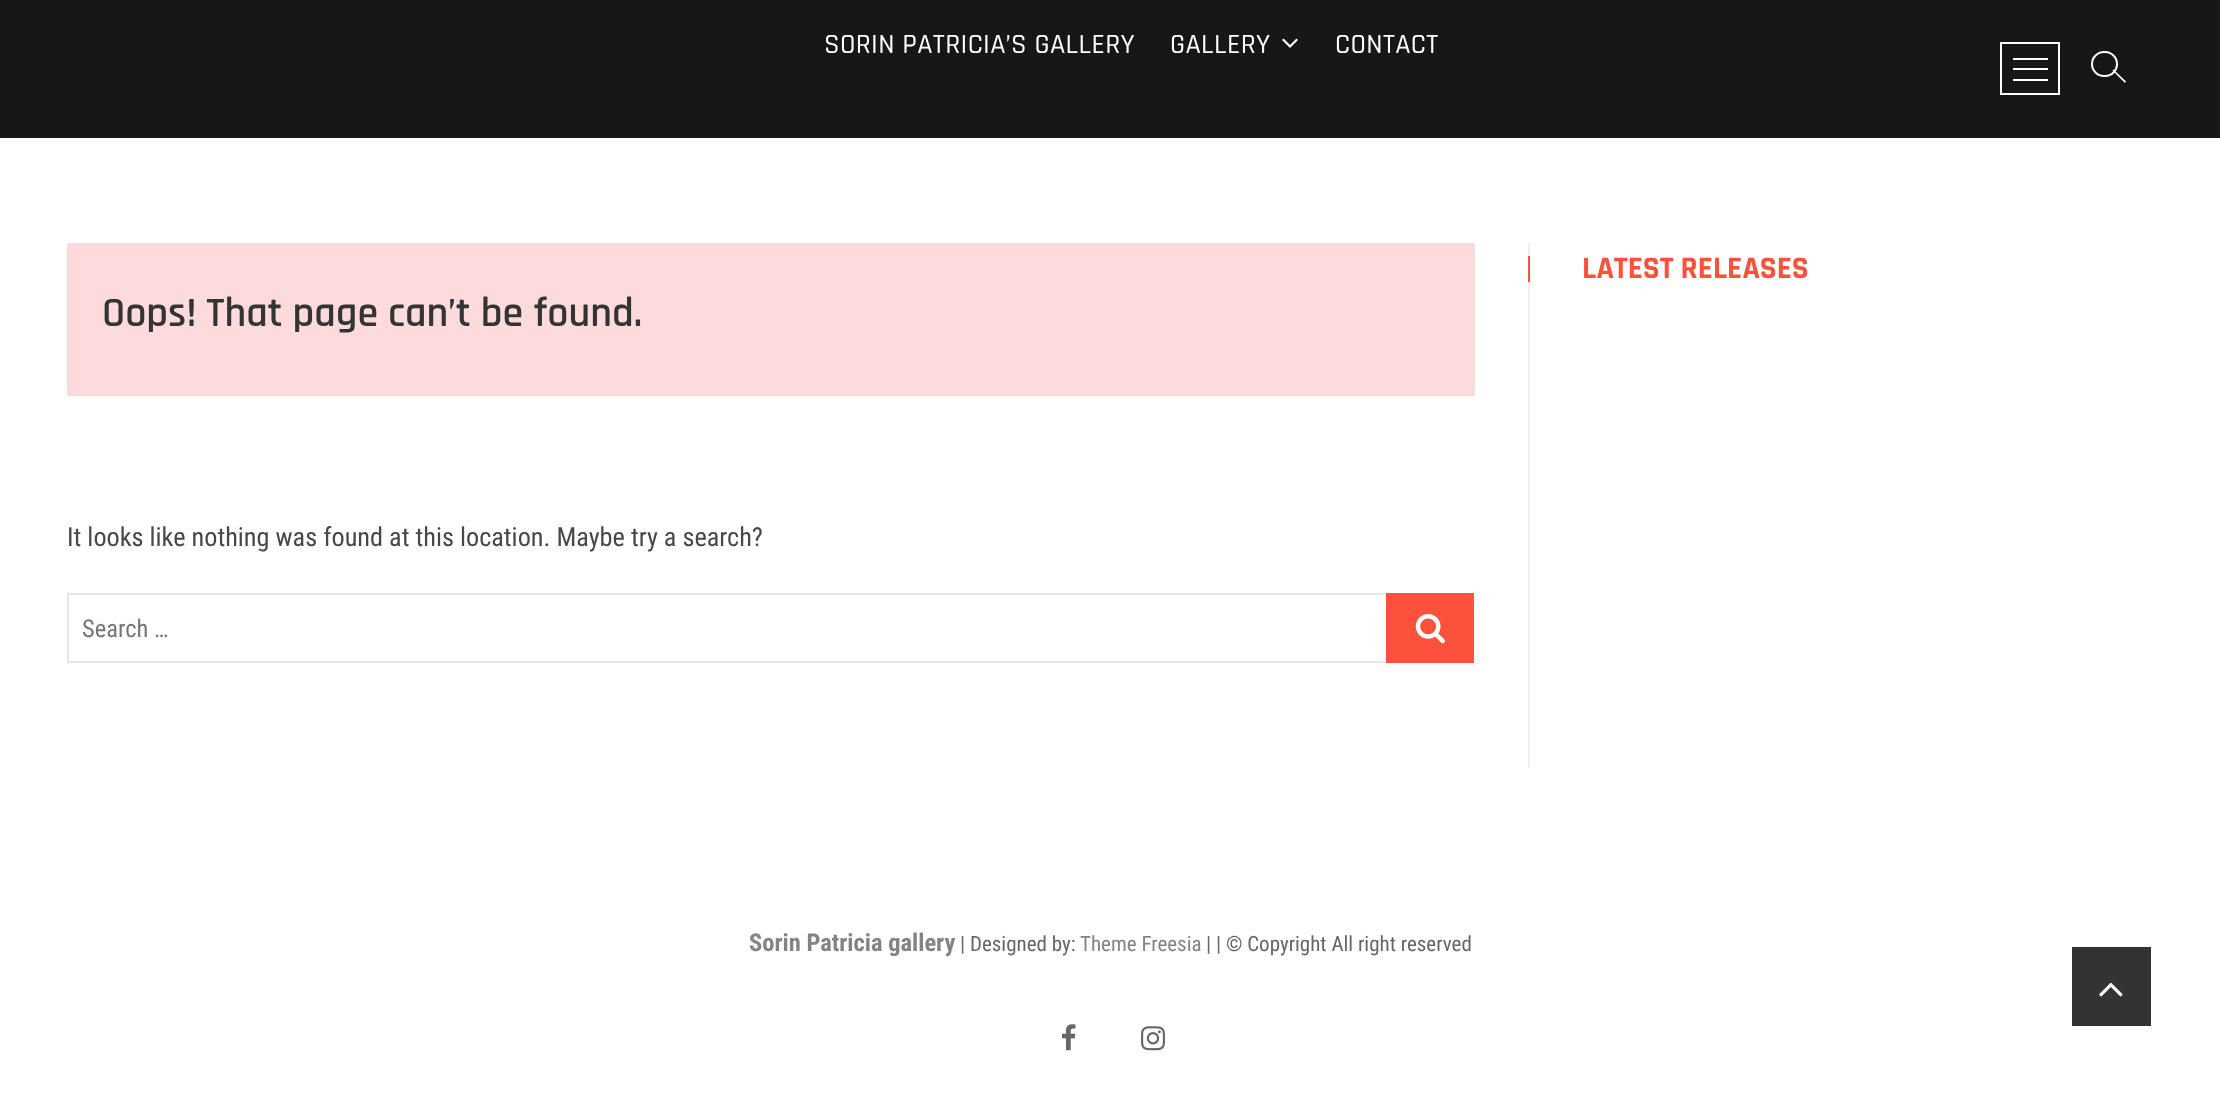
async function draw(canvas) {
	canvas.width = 2220;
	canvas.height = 1094;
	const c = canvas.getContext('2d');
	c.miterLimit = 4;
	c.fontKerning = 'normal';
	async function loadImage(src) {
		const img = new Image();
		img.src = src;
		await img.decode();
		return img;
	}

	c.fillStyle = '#fff';
	c.fillRect(0, 0, 2220, 1094);
	c.fillStyle = '#171717';
	c.fillRect(0, 0, 2220, 138);
	c.letterSpacing = '0.35px';
	c.font = '500 28px Rajdhani';
	c.fillStyle = '#fff';
	c.fillText('SORIN PATRICIA’S GALLERY', 824, 53);
	c.fillText('GALLERY', 1170, 53);
	c.drawImage(await loadImage('img1.png'), 1282, 38, 16, 10);
	c.fillText('CONTACT', 1335, 53);
	c.strokeStyle = '#fff';
	c.lineWidth = 2;
	c.strokeRect(2001, 43, 58, 51);
	for (const [x, y, w, h, color] of [
		[2013, 68, 35, 2, '#fff'],
		[2013, 58, 35, 2, '#fff'],
		[2013, 79, 35, 2, '#fff'],
	]) {
		c.fillStyle = color;
		c.fillRect(x, y, w, h);
	}
	c.beginPath();
	c.roundRect(2092, 52, 25, 24, 12);
	c.stroke();
	c.beginPath();
	c.moveTo(2112.5, 70.5);
	c.lineTo(2113.5, 69.5);
	c.lineTo(2126, 81.5);
	c.lineTo(2125, 83);
	c.closePath();
	c.fill();
	c.fillStyle = '#eee';
	c.fillRect(1528, 243, 2, 524);
	c.fillStyle = '#fd513b';
	c.fillRect(1528, 256, 2, 26);
	c.letterSpacing = '0px';
	c.font = 'bold 31.5px Rajdhani';
	c.fillText('LATEST RELEASES', 1582, 278);
	c.fillStyle = '#fddbdd';
	c.fillRect(67, 243, 1408, 153);
	c.font = '600 42px Rajdhani';
	c.fillStyle = '#343434';
	c.fillText('Oops! That page can’t be found.', 102, 326);
	c.font = '26.25px Roboto Condensed';
	c.fillStyle = '#484848';
	c.fillText('It looks like nothing was found at this location. Maybe try a search?', 67, 546);
	c.strokeStyle = '#e6e6e6';
	c.strokeRect(68, 594, 1319, 68);
	c.font = '24.5px Roboto Condensed';
	c.fillStyle = '#757575';
	c.fillText('Search …', 82, 637);
	c.fillStyle = '#fd513b';
	c.fillRect(1386, 593, 88, 70);
	c.drawImage(await loadImage('img2.png'), 1415, 614, 30, 30);
	c.font = 'bold 24.5px Roboto Condensed';
	c.fillStyle = '#848484';
	c.fillText('Sorin Patricia gallery', 749, 951);
	c.font = '21px Roboto Condensed';
	c.fillStyle = '#666';
	c.fillText('| Designed by:', 960, 951);
	c.fillStyle = '#848484';
	c.fillText('Theme Freesia', 1080, 951);
	c.fillStyle = '#666';
	c.fillText('| | © Copyright All right reserved', 1206, 951);
	c.drawImage(await loadImage('img3.png'), 1062, 1024, 14, 27);
	c.drawImage(await loadImage('img4.png'), 1141, 1026, 24, 25);
	c.fillStyle = '#333';
	c.fillRect(2072, 947, 79, 79);
	c.drawImage(await loadImage('img5.png'), 2099, 982, 24, 15);
}

draw(document.querySelector('canvas'));
